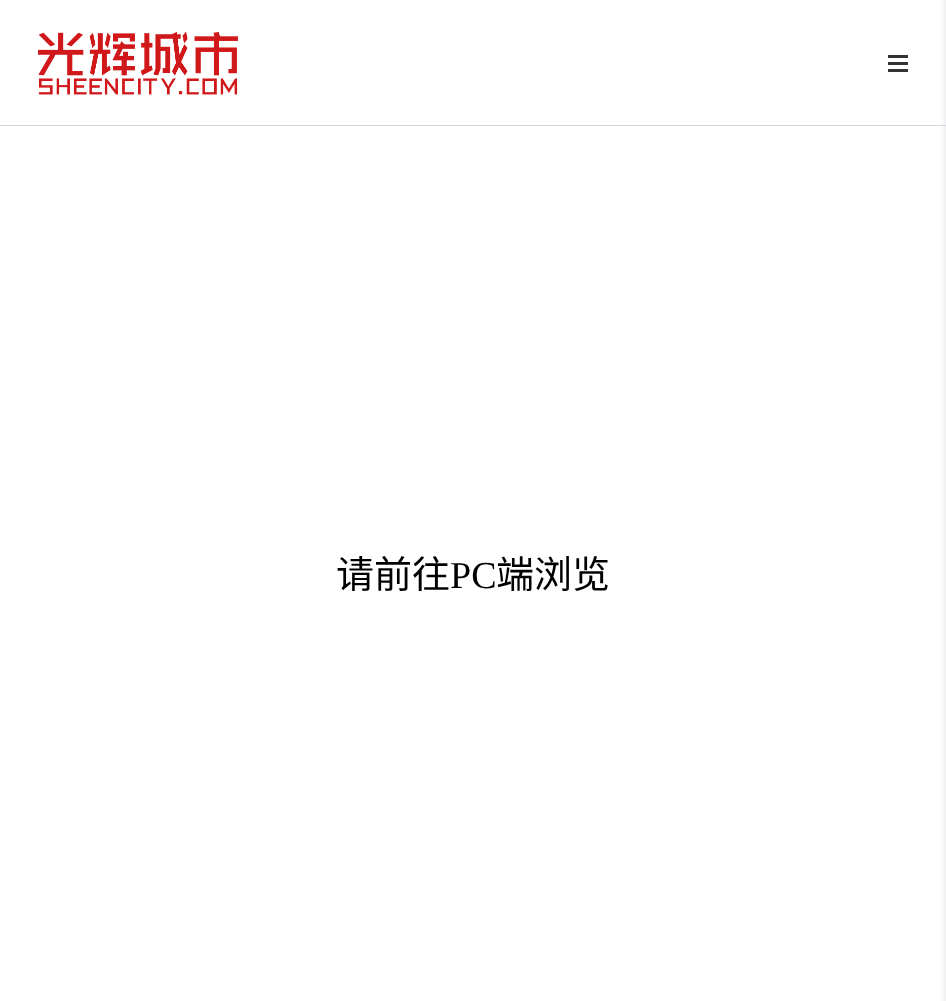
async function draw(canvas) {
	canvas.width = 946;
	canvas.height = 1001;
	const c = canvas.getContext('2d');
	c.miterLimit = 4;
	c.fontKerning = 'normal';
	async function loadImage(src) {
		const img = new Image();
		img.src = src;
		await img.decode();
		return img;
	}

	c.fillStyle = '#fff';
	c.fillRect(0, 0, 946, 1001);
	c.fillStyle = '#d6d7dc';
	c.fillRect(0, 125, 946, 1);
	c.fillStyle = '#d6d7dc80';
	c.filter = 'blur(2.5px)';
	c.beginPath();
	c.rect(944, -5, 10, 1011);
	c.fill();
	c.filter = 'none';
	c.drawImage(await loadImage('img1.png'), 38, 31, 200, 64);
	for (const [x, y, w, h, color] of [
		[888, 55, 20, 3, '#333'],
		[888, 62, 20, 3, '#333'],
		[888, 69, 20, 3, '#333'],
	]) {
		c.fillStyle = color;
		c.fillRect(x, y, w, h);
	}
	c.font = '38px Noto Sans CJK SC';
	c.fillStyle = '#000';
	c.fillText('请前往', 336, 588);
	c.font = '38px Liberation Serif';
	c.fillText('PC', 450, 588);
	c.font = '38px Noto Sans CJK SC';
	c.fillText('端浏览', 496, 588);
}

draw(document.querySelector('canvas'));
